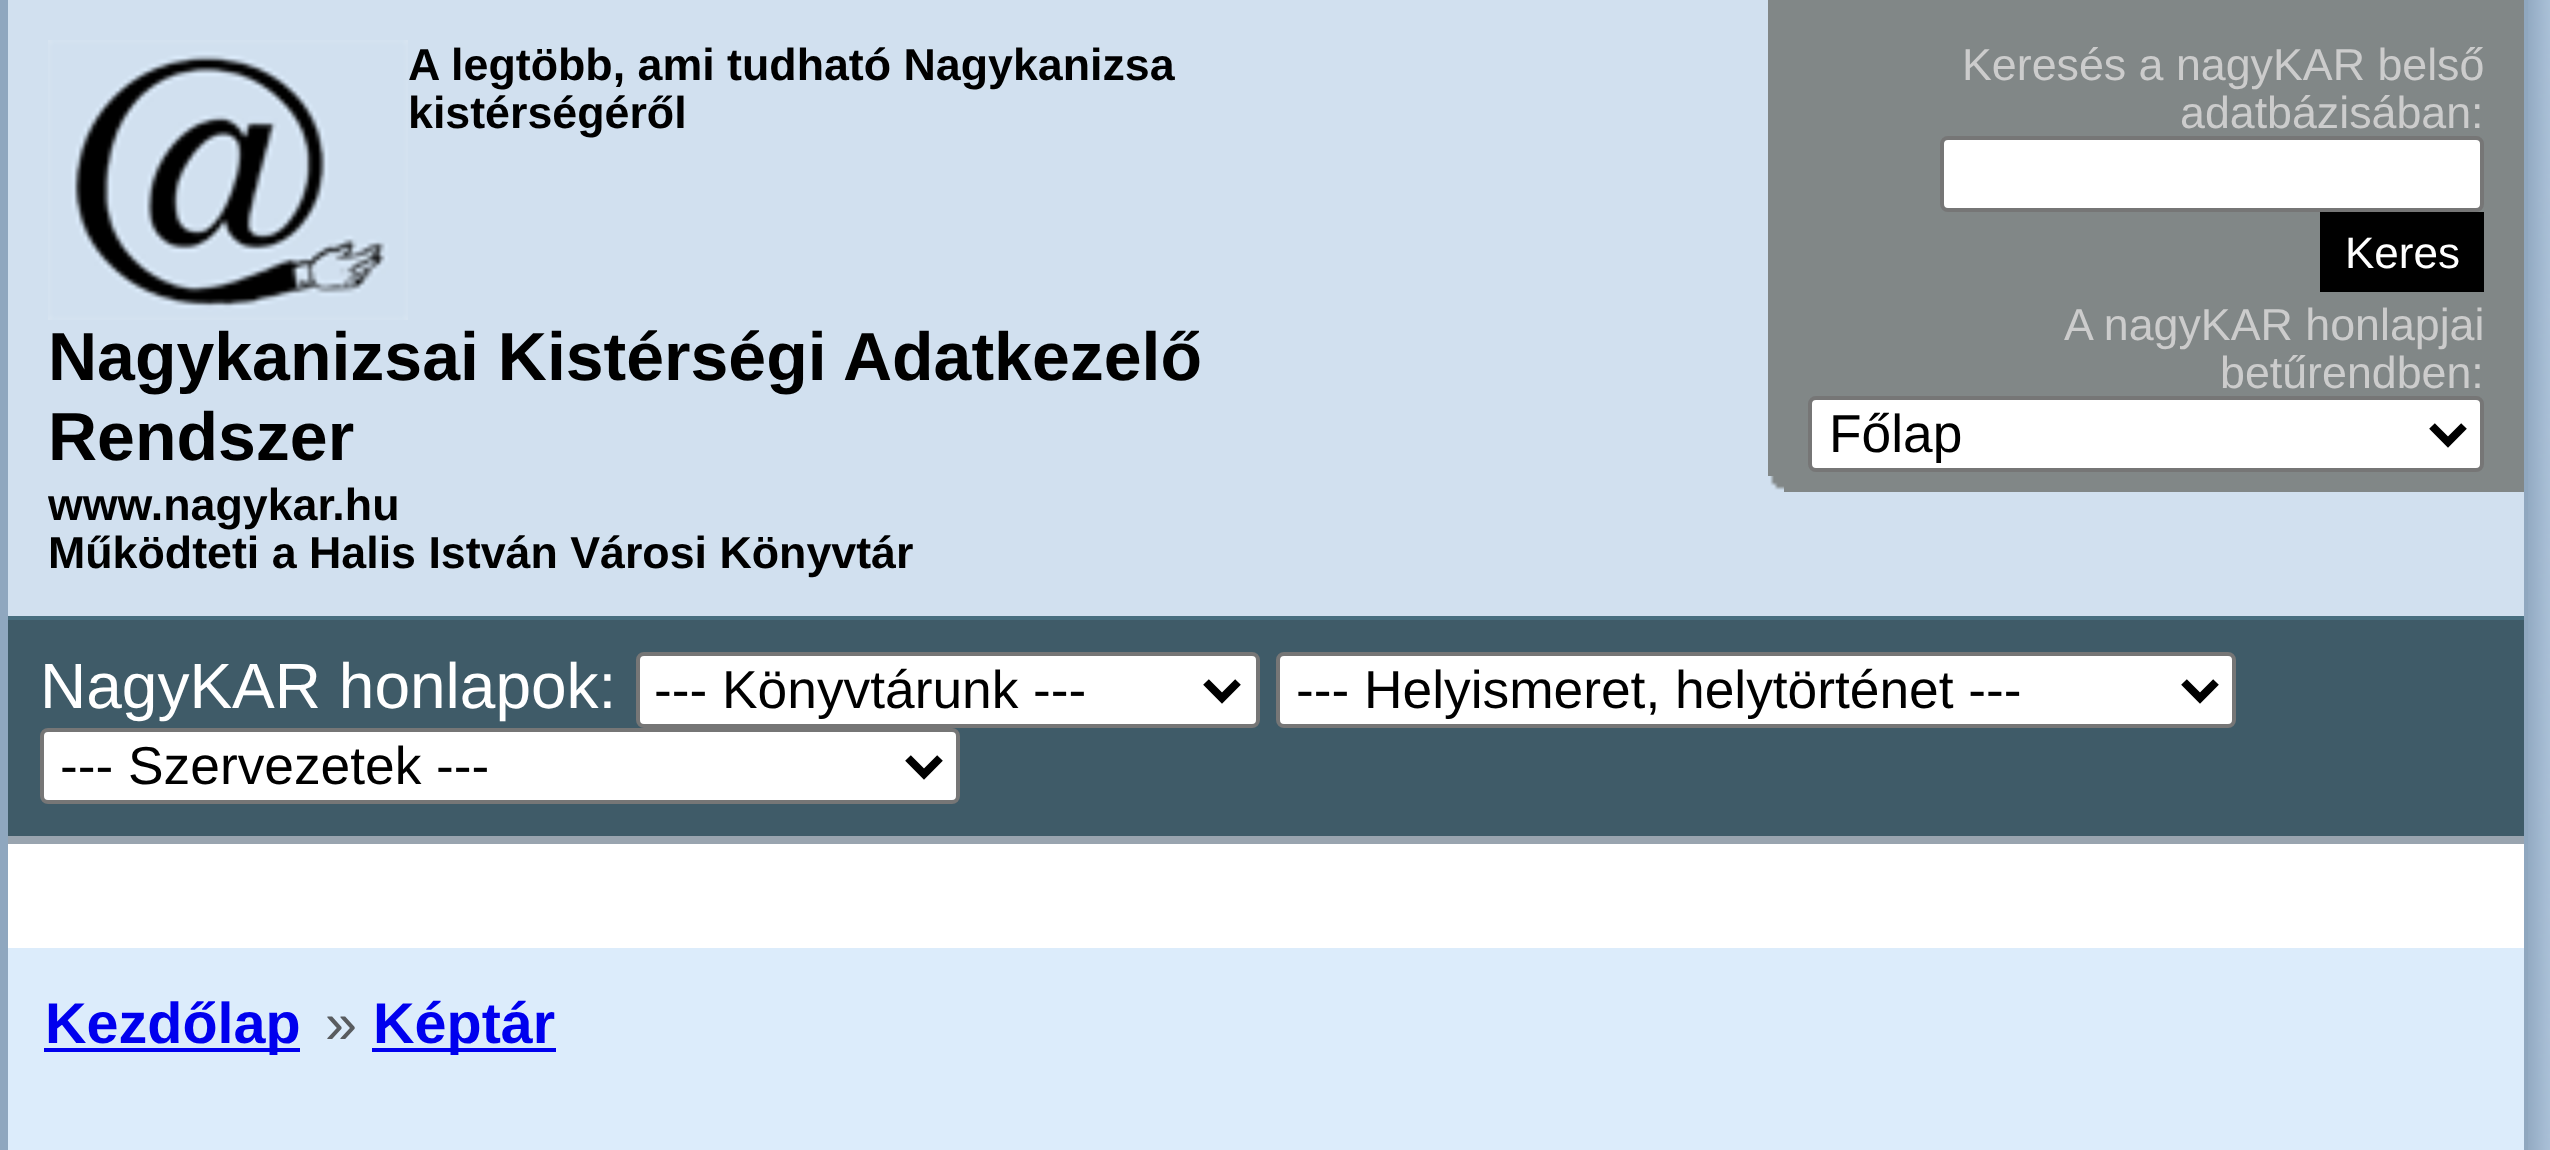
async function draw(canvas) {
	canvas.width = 2550;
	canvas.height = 1150;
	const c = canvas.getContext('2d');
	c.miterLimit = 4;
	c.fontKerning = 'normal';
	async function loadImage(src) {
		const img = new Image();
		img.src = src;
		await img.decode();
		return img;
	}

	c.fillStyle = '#8fa7bf';
	c.fillRect(0, 0, 2550, 1150);
	c.drawImage(await loadImage('img1.png'), 2528, 0, 22, 1150);
	for (const [x, y, w, h, color] of [
		[8, 844, 2516, 104, '#fff'],
		[8, 0, 2516, 616, '#d1e0ef'],
		[8, 836, 2516, 8, '#99a4af'],
	]) {
		c.fillStyle = color;
		c.fillRect(x, y, w, h);
	}
	c.drawImage(await loadImage('img2.png'), 48, 40, 360, 280);
	c.font = 'bold 44.75px Liberation Sans';
	c.fillStyle = '#000';
	c.fillText('A legtöbb, ami tudható Nagykanizsa', 408, 80);
	c.fillText('kistérségéről', 408, 128);
	c.font = 'bold 68px Liberation Sans';
	c.fillText('Nagykanizsai Kistérségi Adatkezelő', 48, 380);
	c.fillText('Rendszer', 48, 460);
	c.font = 'bold 44.75px Liberation Sans';
	c.fillText('www.nagykar.hu', 48, 520);
	c.fillText('Működteti a Halis István Városi Könyvtár', 48, 568);
	c.fillStyle = '#818787';
	c.fillRect(1768, 0, 756, 492);
	c.drawImage(await loadImage('img3.png'), 1768, 476, 16, 16);
	c.font = '44.75px Liberation Sans';
	c.fillStyle = '#ccc';
	c.fillText('Keresés a nagyKAR belső', 1962, 80);
	c.fillText('adatbázisában:', 2180, 128);
	c.fillStyle = '#fff';
	c.beginPath();
	c.roundRect(1942, 138, 540, 72, 6);
	c.fill();
	c.strokeStyle = '#767676';
	c.lineWidth = 4;
	c.stroke();
	c.fillStyle = '#000';
	c.fillRect(2320, 212, 164, 80);
	c.font = '44px Liberation Sans';
	c.fillStyle = '#fff';
	c.fillText('Keres', 2345, 268);
	c.font = '44.75px Liberation Sans';
	c.fillStyle = '#ccc';
	c.fillText('A nagyKAR honlapjai', 2064, 340);
	c.fillText('betűrendben:', 2220, 388);
	c.fillStyle = '#fff';
	c.beginPath();
	c.roundRect(1810, 398, 672, 72, 6);
	c.fill();
	c.stroke();
	c.beginPath();
	c.moveTo(2432, 426);
	c.lineTo(2448, 442);
	c.lineTo(2464, 426);
	c.strokeStyle = '#000';
	c.lineWidth = 8;
	c.stroke();
	c.font = '53.3px Liberation Sans';
	c.fillStyle = '#000';
	c.fillText('Főlap', 1829, 452);
	c.fillStyle = '#3f5b68';
	c.fillRect(8, 620, 2516, 216);
	c.fillStyle = '#476e7f';
	c.fillRect(8, 616, 2516, 4);
	c.font = '64px Liberation Sans';
	c.fillStyle = '#fff';
	c.fillText('NagyKAR honlapok:', 40, 708);
	c.beginPath();
	c.roundRect(638, 654, 620, 72, 6);
	c.fill();
	c.strokeStyle = '#767676';
	c.lineWidth = 4;
	c.stroke();
	c.beginPath();
	c.moveTo(1206, 682);
	c.lineTo(1222, 698);
	c.lineTo(1238, 682);
	c.strokeStyle = '#000';
	c.lineWidth = 8;
	c.stroke();
	c.font = '53.3px Liberation Sans';
	c.fillStyle = '#000';
	c.fillText('--- Könyvtárunk ---', 654, 708);
	c.fillStyle = '#fff';
	c.beginPath();
	c.roundRect(1278, 654, 956, 72, 6);
	c.fill();
	c.strokeStyle = '#767676';
	c.lineWidth = 4;
	c.stroke();
	c.beginPath();
	c.moveTo(2184, 682);
	c.lineTo(2200, 698);
	c.lineTo(2216, 682);
	c.strokeStyle = '#000';
	c.lineWidth = 8;
	c.stroke();
	c.fillStyle = '#000';
	c.fillText('--- Helyismeret, helytörténet ---', 1296, 708);
	c.fillStyle = '#fff';
	c.beginPath();
	c.roundRect(42, 730, 916, 72, 6);
	c.fill();
	c.strokeStyle = '#767676';
	c.lineWidth = 4;
	c.stroke();
	c.beginPath();
	c.moveTo(908, 758);
	c.lineTo(924, 774);
	c.lineTo(940, 758);
	c.strokeStyle = '#000';
	c.lineWidth = 8;
	c.stroke();
	c.fillStyle = '#000';
	c.fillText('--- Szervezetek ---', 60, 784);
	c.fillStyle = '#dcecfb';
	c.fillRect(8, 948, 2516, 202);
	c.fillStyle = '#00e';
	c.fillRect(44, 1048, 256, 4);
	c.font = 'bold 57.5px Liberation Sans';
	c.fillText('Kezdőlap', 45, 1043);
	c.font = '57.5px Liberation Sans';
	c.fillStyle = '#595c5f';
	c.fillText('»', 325, 1043);
	c.fillStyle = '#00e';
	c.fillRect(372, 1048, 184, 4);
	c.font = 'bold 57.5px Liberation Sans';
	c.fillText('Képtár', 373, 1043);
}

draw(document.querySelector('canvas'));
